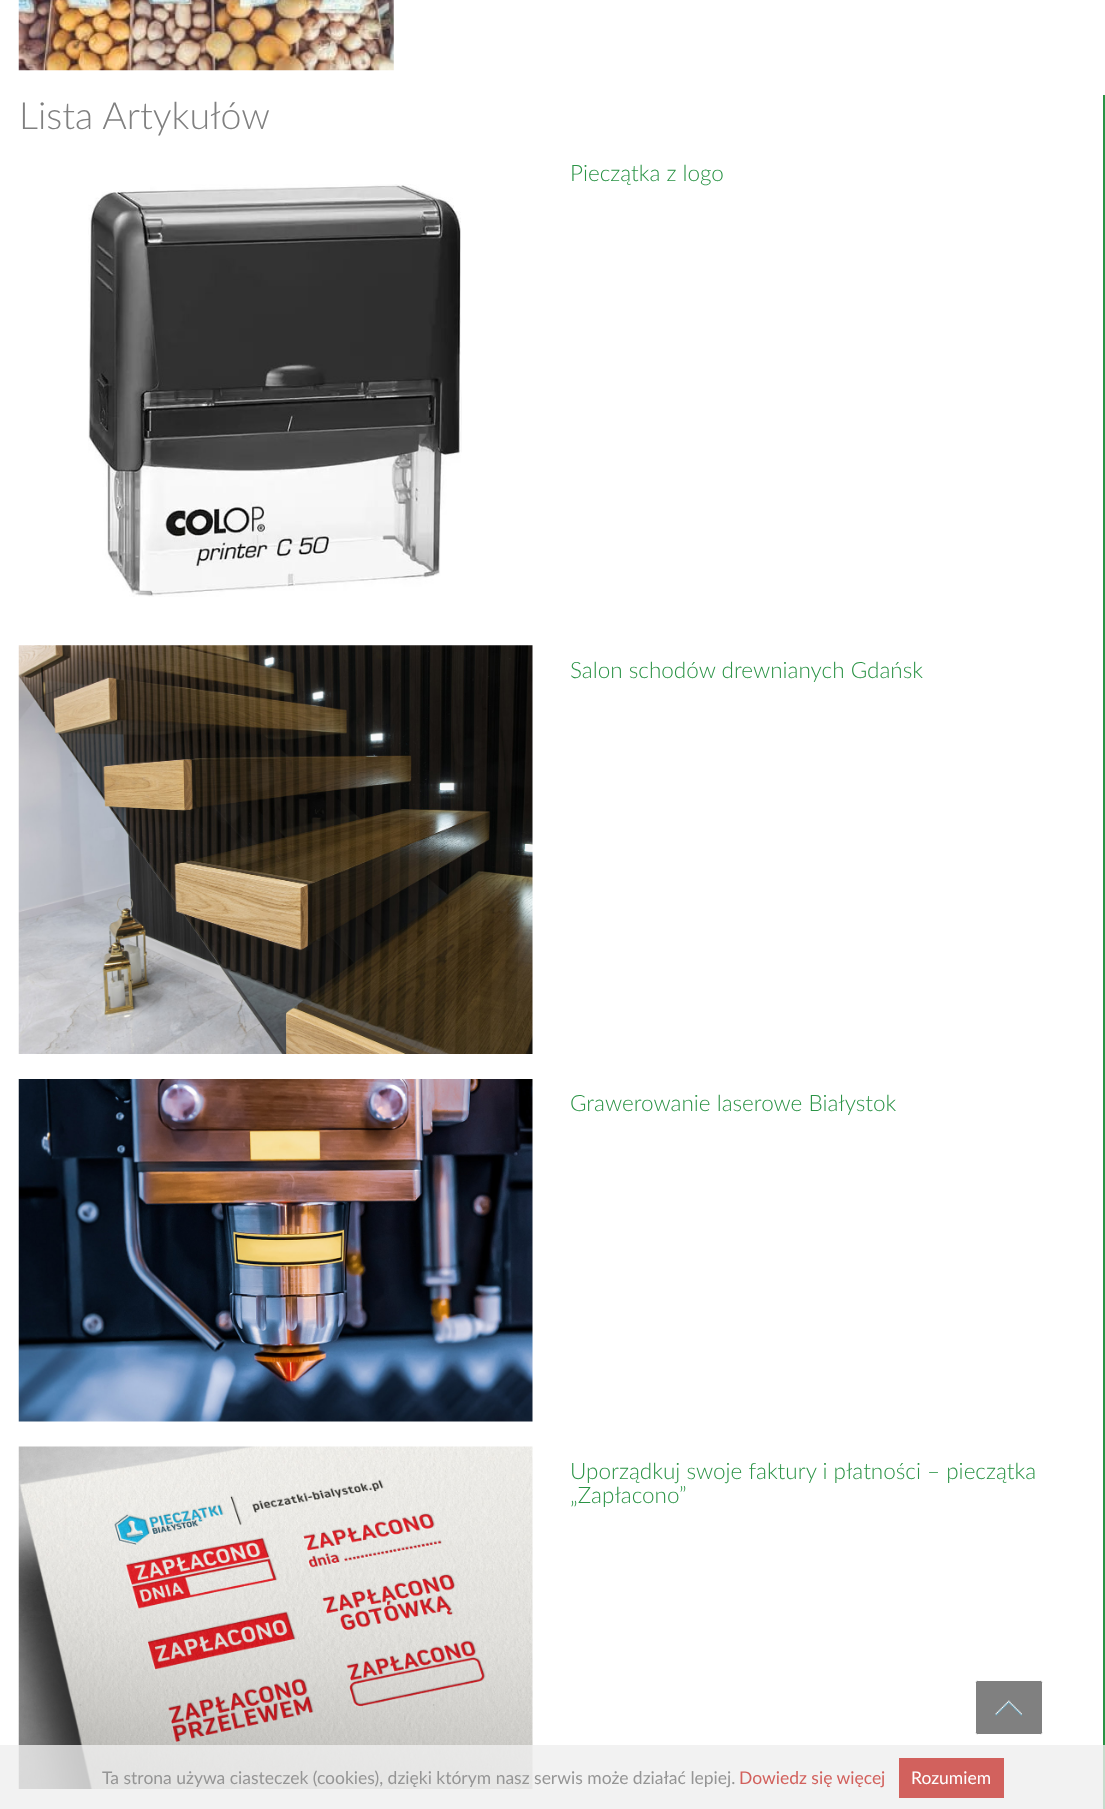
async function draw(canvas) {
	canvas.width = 1105;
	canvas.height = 1809;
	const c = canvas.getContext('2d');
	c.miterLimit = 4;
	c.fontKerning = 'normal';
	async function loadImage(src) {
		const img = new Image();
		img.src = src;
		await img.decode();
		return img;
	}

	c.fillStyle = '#fff';
	c.fillRect(0, 0, 1105, 1809);
	c.drawImage(await loadImage('img1.png'), 18, 0, 376, 71);
	c.fillStyle = '#2a9345';
	c.fillRect(1103, 95, 2, 1714);
	c.font = '300 37.5px Lato';
	c.fillStyle = '#808080';
	c.fillText('Lista Artykułów', 19, 129);
	c.font = '300 22.5px Lato';
	c.fillStyle = '#2a9345';
	c.fillText('Pieczątka z logo', 570, 181);
	c.drawImage(await loadImage('img2.png'), 88, 184, 374, 413);
	c.drawImage(await loadImage('img3.png'), 18, 645, 515, 409);
	c.fillText('Salon schodów drewnianych Gdańsk', 570, 678);
	c.drawImage(await loadImage('img4.png'), 18, 1079, 515, 343);
	c.fillText('Grawerowanie laserowe Białystok', 570, 1111);
	c.drawImage(await loadImage('img5.png'), 18, 1446, 515, 343);
	c.fillText('Uporządkuj swoje faktury i płatności – pieczątka', 570, 1479);
	c.fillText('„Zapłacono”', 570, 1503);
	c.fillStyle = '#808080';
	c.beginPath();
	c.roundRect(975.5, 1680.5, 67, 54, 2);
	c.fill();
	c.strokeStyle = '#fff';
	c.stroke();
	c.drawImage(await loadImage('img6.png'), 995, 1700, 27, 16);
	c.fillStyle = '#efefefcc';
	c.fillRect(0, 1745, 1105, 64);
	c.font = '17.5px Lato';
	c.fillStyle = '#959595';
	c.fillText('Ta strona używa ciasteczek (cookies), dzięki którym nasz serwis może działać lepiej.', 102, 1784);
	c.fillStyle = '#d2615d';
	c.fillText('Dowiedz się więcej', 739, 1784);
	c.fillRect(899, 1758, 105, 40);
	c.fillStyle = '#fff';
	c.fillText('Rozumiem', 911, 1784);
}

draw(document.querySelector('canvas'));
